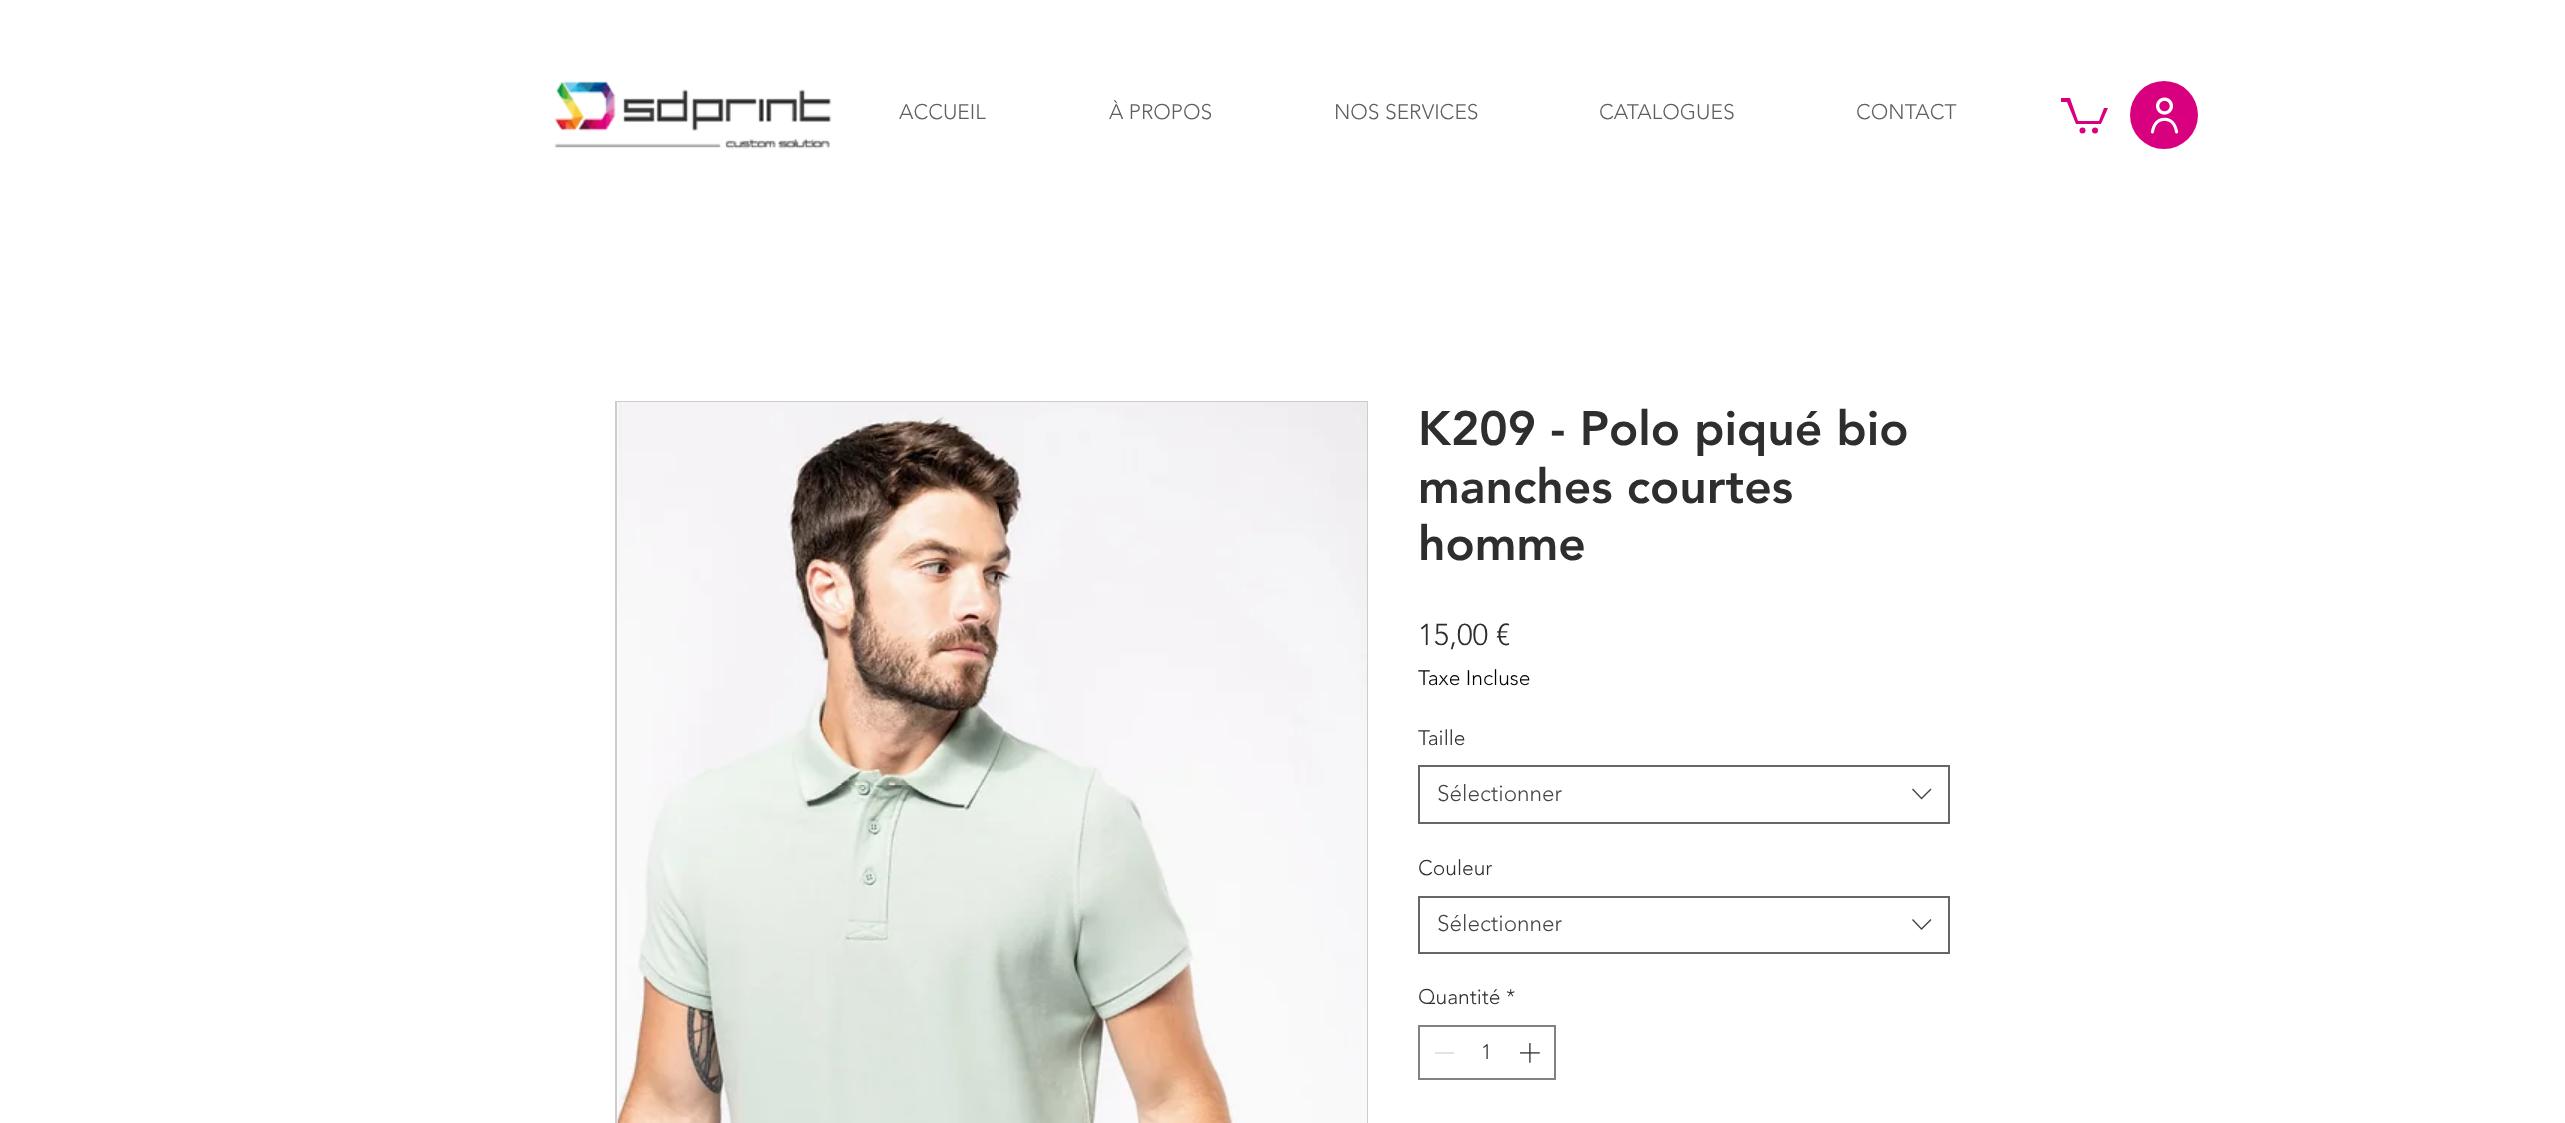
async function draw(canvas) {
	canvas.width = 2565;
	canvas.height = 1123;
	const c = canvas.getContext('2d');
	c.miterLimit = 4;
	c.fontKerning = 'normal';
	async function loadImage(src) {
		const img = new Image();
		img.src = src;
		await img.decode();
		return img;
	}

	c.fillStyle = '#fff';
	c.fillRect(0, 0, 2565, 1123);
	c.drawImage(await loadImage('img1.png'), 554, 81, 278, 68);
	c.font = '300 21px "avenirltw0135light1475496"';
	c.fillStyle = '#605e5e';
	for (const [text, x, y] of [
		['ACCUEIL', 899, 119],
		['À PROPOS', 1109, 119],
		['NOS SERVICES', 1334, 119],
		['CATALOGUES', 1599, 119],
		['CONTACT', 1856, 119],
	]) {
		c.fillText(text, x, y);
	}
	c.fillStyle = '#d8007e';
	c.beginPath();
	c.moveTo(2108, 108);
	c.lineTo(2101, 124);
	c.lineTo(2076, 124);
	c.lineTo(2067, 102);
	c.lineTo(2061, 102);
	c.lineTo(2061, 98);
	c.lineTo(2070, 98);
	c.lineTo(2078, 121);
	c.lineTo(2099, 121);
	c.lineTo(2104, 108);
	c.fill();
	c.beginPath();
	c.arc(2095, 130.5, 3, 0, 2 * Math.PI);
	c.fill();
	c.beginPath();
	c.arc(2082.5, 130.5, 3, 0, 2 * Math.PI);
	c.fill();
	c.beginPath();
	c.arc(2164, 115, 34, 0, 2 * Math.PI);
	c.fill();
	c.drawImage(await loadImage('img2.png'), 2150, 97, 29, 37);
	c.strokeStyle = '#ccc';
	c.lineWidth = 2;
	c.strokeRect(616, 402, 751, 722);
	c.drawImage(await loadImage('img3.png'), 617, 402, 750, 721);
	c.font = '900 48px "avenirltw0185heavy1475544"';
	c.fillStyle = '#2f2e2e';
	for (const [text, x, y] of [
		['K209 - Polo piqué bio', 1418, 445],
		['manches courtes', 1418, 503],
		['homme', 1418, 560],
	]) {
		c.fillText(text, x, y);
	}
	c.font = '300 30px "avenirltw0135light1475496"';
	c.fillText('15,00 €', 1418, 645);
	c.font = '300 21px "avenirltw0135light1475496"';
	c.fillStyle = '#000';
	c.fillText('Taxe Incluse', 1418, 685);
	c.fillStyle = '#2f2e2e';
	c.fillText('Taille', 1418, 745);
	c.strokeStyle = '#666';
	c.strokeRect(1419, 766, 530, 57);
	c.font = '300 22.5px "avenirltw0135light1475496"';
	c.fillStyle = '#444';
	c.fillText('Sélectionner', 1437, 801);
	c.beginPath();
	c.moveTo(1930.5, 788.5);
	c.lineTo(1931.5, 789.5);
	c.lineTo(1921.5, 799.5);
	c.lineTo(1912, 789.5);
	c.lineTo(1913, 788.5);
	c.lineTo(1921.5, 797.5);
	c.closePath();
	c.fill('evenodd');
	c.font = '300 21px "avenirltw0135light1475496"';
	c.fillStyle = '#2f2e2e';
	c.fillText('Couleur', 1418, 875);
	c.strokeRect(1419, 897, 530, 56);
	c.font = '300 22.5px "avenirltw0135light1475496"';
	c.fillStyle = '#444';
	c.fillText('Sélectionner', 1437, 931);
	c.beginPath();
	c.moveTo(1930.5, 919);
	c.lineTo(1931.5, 920);
	c.lineTo(1921.5, 930);
	c.lineTo(1912, 920);
	c.lineTo(1913, 919);
	c.lineTo(1921.5, 928);
	c.closePath();
	c.fill('evenodd');
	c.font = '300 21px "avenirltw0135light1475496"';
	c.fillStyle = '#2f2e2e';
	c.fillText('Quantité', 1418, 1004);
	c.fillText('*', 1506, 1004);
	c.strokeStyle = '#828282';
	c.strokeRect(1419, 1026, 136, 53);
	c.fillStyle = '#e3e3e3';
	c.fillRect(1435, 1052, 19, 2);
	c.fillStyle = '#2f2e2e';
	c.fillText('1', 1481, 1059);
	c.drawImage(await loadImage('img4.png'), 1520, 1043, 20, 20);
}

draw(document.querySelector('canvas'));
